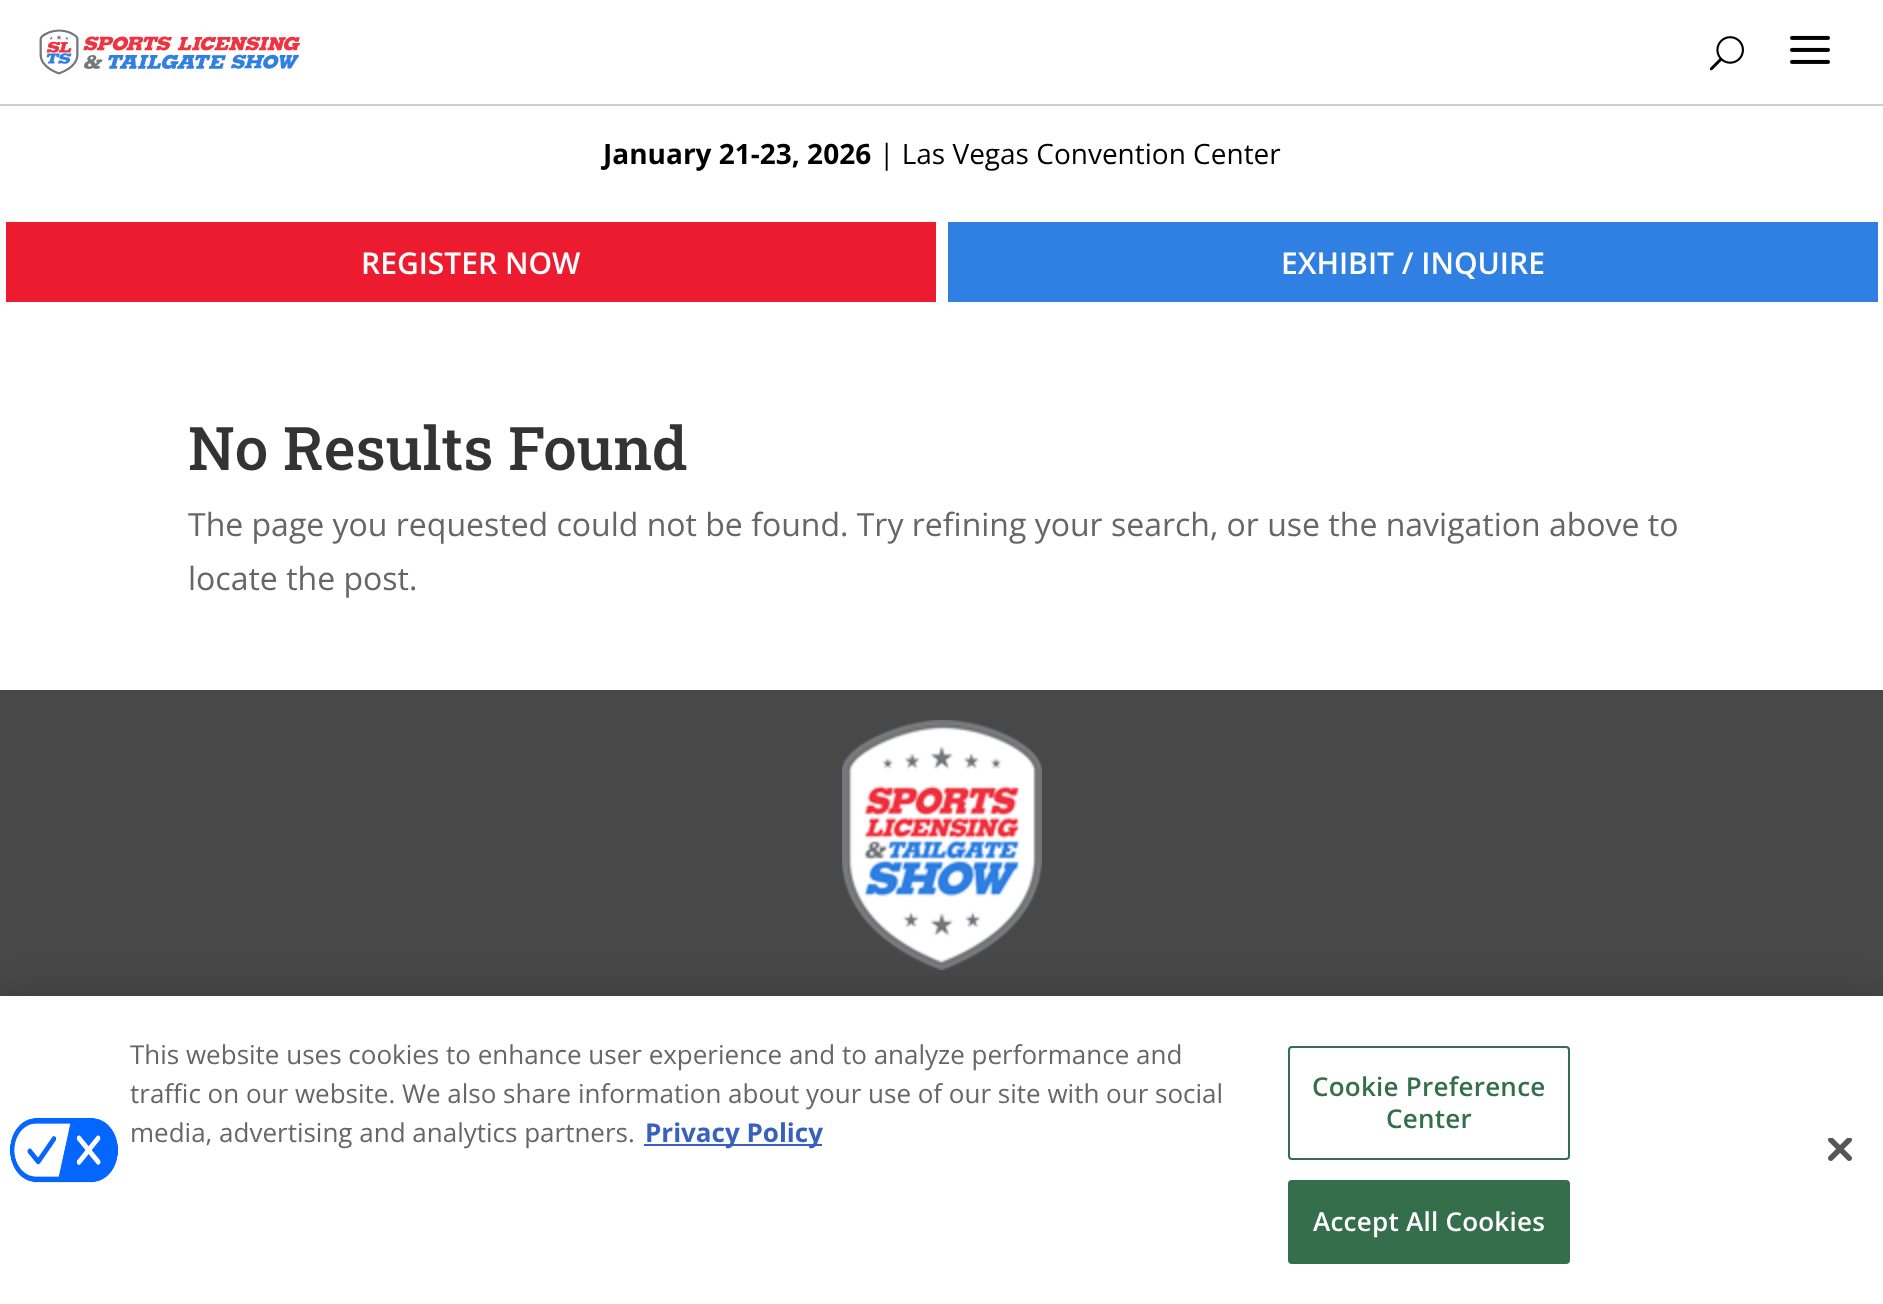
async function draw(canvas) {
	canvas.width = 1883;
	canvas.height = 1304;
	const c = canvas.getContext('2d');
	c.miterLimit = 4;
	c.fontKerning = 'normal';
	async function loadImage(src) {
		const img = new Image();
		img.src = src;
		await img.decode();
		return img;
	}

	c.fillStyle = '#fff';
	c.fillRect(0, 0, 1883, 1304);
	c.fillStyle = '#ccc';
	c.fillRect(0, 104, 1883, 2);
	c.drawImage(await loadImage('img1.png'), 39, 29, 261, 46);
	c.drawImage(await loadImage('img2.png'), 1709, 36, 35, 35);
	c.drawImage(await loadImage('img3.png'), 1790, 35, 40, 29);
	c.font = 'bold 28px Open Sans';
	c.fillStyle = '#000';
	c.fillText('January 21-23, 2026', 603, 164);
	c.font = '28px Open Sans';
	c.fillText('| Las Vegas Convention Center', 879, 164);
	c.fillStyle = '#ed1b2f';
	c.fillRect(6, 222, 930, 80);
	c.font = '600 30px Open Sans';
	c.fillStyle = '#fff';
	c.fillText('REGISTER NOW', 361, 274);
	c.fillStyle = '#307fe2';
	c.fillRect(948, 222, 930, 80);
	c.fillStyle = '#fff';
	c.fillText('EXHIBIT / INQUIRE', 1281, 274);
	c.font = '500 60px Roboto Slab';
	c.fillStyle = '#333';
	c.fillText('No Results Found', 188, 470);
	c.font = '32px Open Sans';
	c.fillStyle = '#666';
	c.fillText('The page you requested could not be found. Try refining your search, or use the navigation above to', 188, 536);
	c.fillText('locate the post.', 188, 590);
	c.fillStyle = '#484848';
	c.fillRect(0, 690, 1883, 306);
	c.drawImage(await loadImage('img4.png'), 842, 720, 200, 250);
	c.fillStyle = '#00000033';
	c.filter = 'blur(18px)';
	c.beginPath();
	c.rect(0, 996, 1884, 308);
	c.fill();
	c.filter = 'none';
	c.fillStyle = '#fff';
	c.fillRect(0, 996, 1883, 308);
	c.drawImage(await loadImage('img5.png'), 10, 1118, 108, 65);
	c.font = '26px Open Sans';
	c.fillStyle = '#666';
	for (const [text, x, y] of [
		['This website uses cookies to enhance user experience and to analyze performance and', 130, 1064],
		['traffic on our website. We also share information about your use of our site with our social', 130, 1103],
		['media, advertising and analytics partners.', 130, 1142],
	]) {
		c.fillText(text, x, y);
	}
	c.fillStyle = '#3860be';
	c.fillRect(644, 1144, 178, 2);
	c.font = 'bold 26px Open Sans';
	c.fillText('Privacy Policy', 645, 1142);
	c.beginPath();
	c.roundRect(1289, 1047, 280, 112, 3);
	c.strokeStyle = '#346e4a';
	c.lineWidth = 2;
	c.stroke();
	c.letterSpacing = '0.25px';
	c.font = '600 26px Open Sans';
	c.fillStyle = '#346e4a';
	c.fillText('Cookie Preference', 1312, 1096);
	c.fillText('Center', 1386, 1128);
	c.beginPath();
	c.roundRect(1289, 1181, 280, 82, 3);
	c.fill();
	c.stroke();
	c.fillStyle = '#fff';
	c.fillText('Accept All Cookies', 1313, 1231);
	c.drawImage(await loadImage('img6.png'), 1828, 1138, 24, 23);
}

draw(document.querySelector('canvas'));
